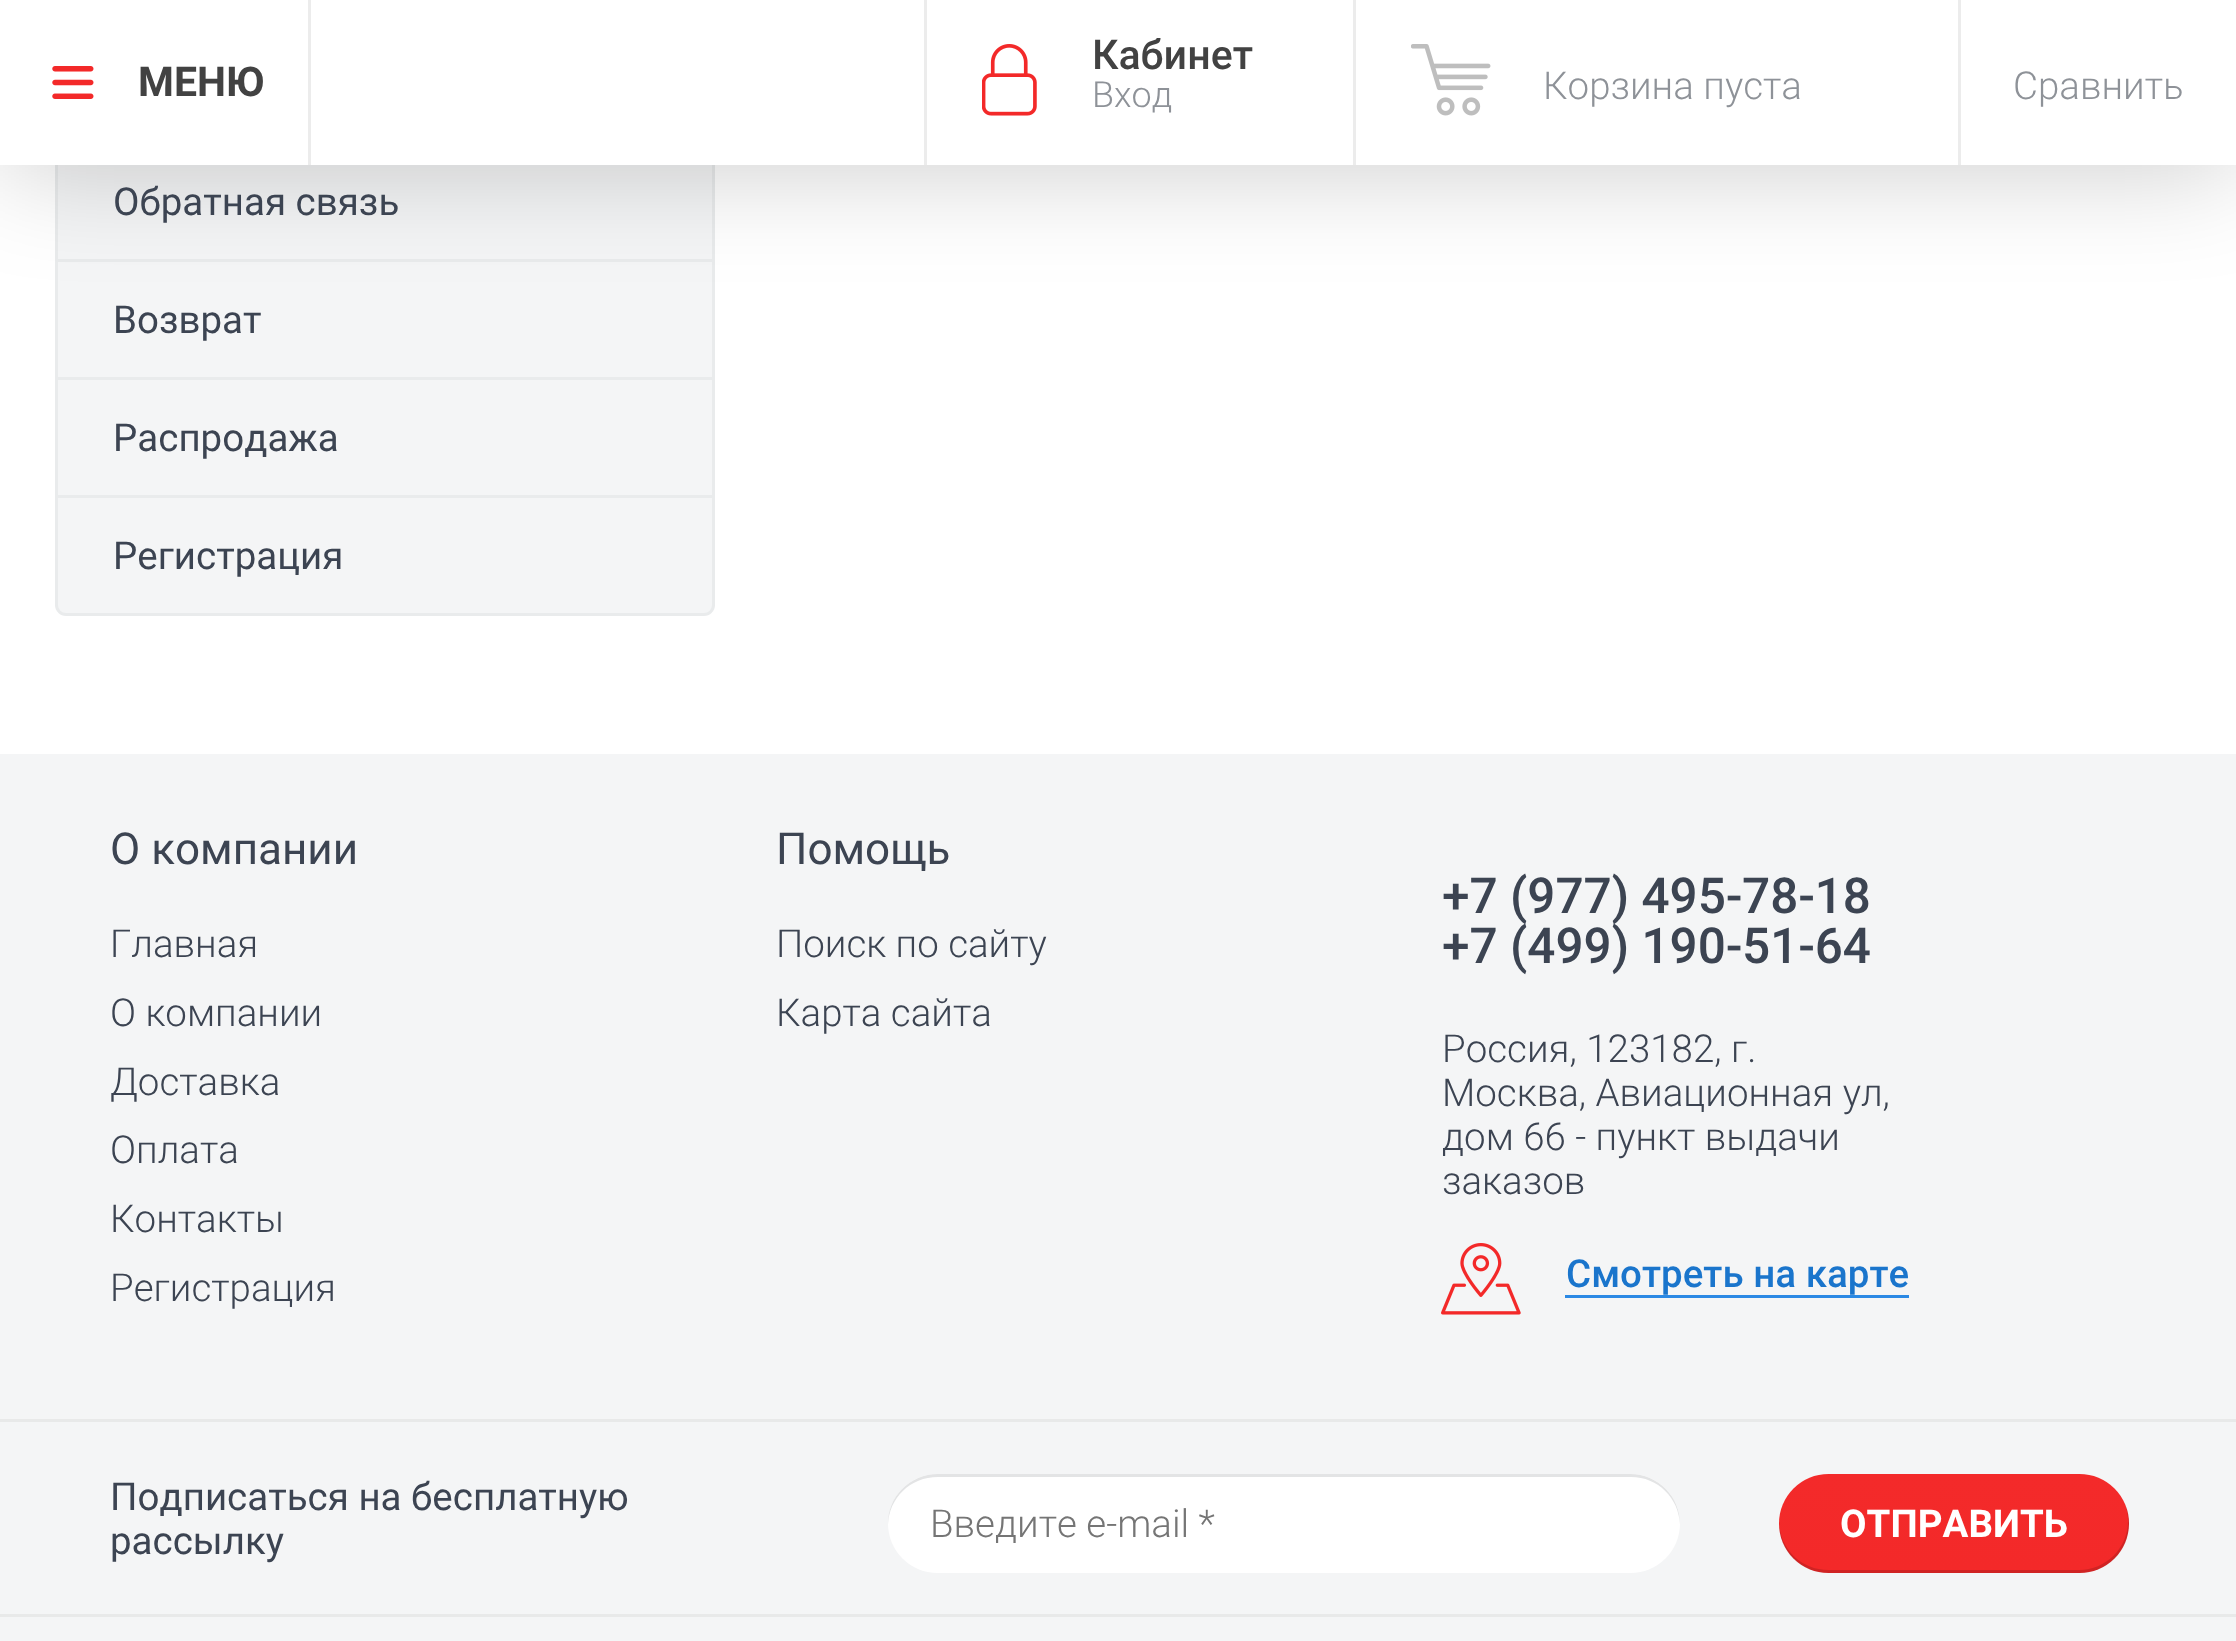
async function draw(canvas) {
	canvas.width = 2236;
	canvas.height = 1641;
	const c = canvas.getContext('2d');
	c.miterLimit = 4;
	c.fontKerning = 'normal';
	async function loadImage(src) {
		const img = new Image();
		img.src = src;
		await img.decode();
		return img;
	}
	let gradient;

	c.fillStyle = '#fff';
	c.fillRect(0, 0, 2236, 1641);
	c.fillStyle = '#f4f5f6';
	c.beginPath();
	c.roundRect(56.5, -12.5, 657, 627, 9.5);
	c.fill();
	c.strokeStyle = '#e9ebec';
	c.lineWidth = 3;
	c.stroke();
	c.fillStyle = '#e9ebec';
	c.fillRect(58, 259, 654, 3);
	c.fillStyle = '#00000033';
	c.filter = 'blur(55px)';
	c.beginPath();
	c.rect(0, 3, 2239, 165);
	c.fill();
	c.filter = 'none';
	c.fillStyle = '#fff';
	c.fillRect(0, 0, 2236, 165);
	c.drawImage(await loadImage('img1.png'), 52, 66, 42, 33);
	c.fillStyle = '#ececec';
	c.fillRect(308, 0, 3, 165);
	c.font = 'bold 41px Roboto';
	c.fillStyle = '#424242';
	c.fillText('МЕНЮ', 138, 96);
	c.fillStyle = '#ececec';
	c.fillRect(924, 0, 3, 165);
	c.fillRect(1353, 0, 3, 165);
	c.drawImage(await loadImage('img2.png'), 982, 44, 55, 72);
	c.font = '500 41px Roboto';
	c.fillStyle = '#424242';
	c.fillText('Кабинет', 1092, 69);
	c.font = '300 36px Roboto';
	c.fillStyle = '#8e9298';
	c.fillText('Вход', 1092, 107);
	c.fillStyle = '#ececec';
	c.fillRect(1958, 0, 3, 165);
	c.drawImage(await loadImage('img3.png'), 1411, 44, 80, 72);
	c.font = '300 38.5px Roboto';
	c.fillStyle = '#8e9298';
	c.fillText('Корзина пуста', 1543, 99);
	c.fillText('Сравнить', 2013, 99);
	c.font = '38.5px Roboto';
	c.fillStyle = '#3c4452';
	c.fillText('Обратная связь', 113, 215);
	c.fillStyle = '#e9ebec';
	c.fillRect(58, 377, 654, 3);
	c.fillStyle = '#3c4452';
	c.fillText('Возврат', 113, 333);
	c.fillStyle = '#e9ebec';
	c.fillRect(58, 495, 654, 3);
	c.fillStyle = '#3c4452';
	c.fillText('Распродажа', 113, 451);
	c.fillText('Регистрация', 113, 569);
	c.fillStyle = '#f4f5f6';
	c.fillRect(0, 754, 2236, 887);
	c.font = '44px Roboto';
	c.fillStyle = '#3c4452';
	c.fillText('О компании', 110, 864);
	c.font = '300 38.5px Roboto';
	for (const [text, x, y] of [
		['Главная', 110, 957],
		['О компании', 110, 1026],
		['Доставка', 110, 1095],
		['Оплата', 110, 1163],
		['Контакты', 110, 1232],
		['Регистрация', 110, 1301],
	]) {
		c.fillText(text, x, y);
	}
	c.font = '44px Roboto';
	c.fillText('Помощь', 776, 864);
	c.font = '300 38.5px Roboto';
	c.fillText('Поиск по сайту', 776, 957);
	c.fillText('Карта сайта', 776, 1026);
	c.font = '500 49.5px Roboto';
	c.fillText('+7 (977) 495-78-18', 1442, 913);
	c.fillText('+7 (499) 190-51-64', 1442, 963);
	c.font = '300 38.5px Roboto';
	for (const [text, x, y] of [
		['Россия, 123182, г.', 1442, 1062],
		['Москва, Авиационная ул,', 1442, 1106],
		['дом 66 - пункт выдачи', 1442, 1150],
		['заказов', 1442, 1194],
	]) {
		c.fillText(text, x, y);
	}
	c.drawImage(await loadImage('img4.png'), 1441, 1243, 80, 72);
	c.font = '500 38.5px Roboto';
	c.fillStyle = '#1a75cc';
	c.fillText('Смотреть на карте', 1566, 1287);
	c.fillStyle = '#2b89e4';
	c.fillRect(1565, 1295, 344, 3);
	c.fillStyle = '#e8e9e9';
	c.fillRect(0, 1419, 2236, 3);
	c.font = '38.5px Roboto';
	c.fillStyle = '#3c4452';
	c.fillText('Подписаться на бесплатную', 110, 1510);
	c.fillText('рассылку', 110, 1554);
	c.fillStyle = '#fff';
	c.beginPath();
	c.roundRect(888, 1474, 792, 99, 49.5);
	c.fill();
	c.fillStyle = '#e3e4e5';
	c.beginPath();
	c.moveTo(938, 1477);
	c.lineTo(1631, 1477);
	c.bezierCurveTo(1658, 1477, 1679, 1498, 1680, 1525);
	c.bezierCurveTo(1681, 1497, 1658, 1474, 1630, 1474);
	c.lineTo(938, 1474);
	c.bezierCurveTo(910, 1474, 887, 1497, 888, 1525);
	c.bezierCurveTo(889, 1498, 910, 1477, 938, 1477);
	c.closePath();
	c.fill();
	c.font = '300 38.5px Roboto';
	c.fillStyle = '#757575';
	c.fillText('Введите e-mail *', 930, 1537);
	gradient = c.createLinearGradient(1954, 1573, 1954, 1474);
	gradient.addColorStop(0, '#f32929');
	gradient.addColorStop(1, '#f32a2a');
	c.fillStyle = gradient;
	c.beginPath();
	c.roundRect(1779, 1474, 350, 99, 49.5);
	c.fill();
	c.fillStyle = '#00000024';
	c.beginPath();
	c.moveTo(1779, 1522);
	c.lineTo(1779, 1524);
	c.bezierCurveTo(1779, 1551, 1801, 1573, 1828, 1573);
	c.lineTo(2080, 1573);
	c.bezierCurveTo(2107, 1573, 2129, 1551, 2129, 1524);
	c.bezierCurveTo(2129, 1517, 2128, 1511, 2126, 1506);
	c.bezierCurveTo(2127, 1511, 2128, 1516, 2128, 1521);
	c.bezierCurveTo(2128, 1548, 2106, 1570, 2079, 1570);
	c.lineTo(1829, 1570);
	c.bezierCurveTo(1801, 1570, 1780, 1549, 1779, 1522);
	c.closePath();
	c.fill();
	c.font = 'bold 38.5px Roboto';
	c.fillStyle = '#fff';
	c.fillText('ОТПРАВИТЬ', 1840, 1537);
	c.fillStyle = '#e8e9e9';
	c.fillRect(0, 1614, 2236, 3);
}

draw(document.querySelector('canvas'));
